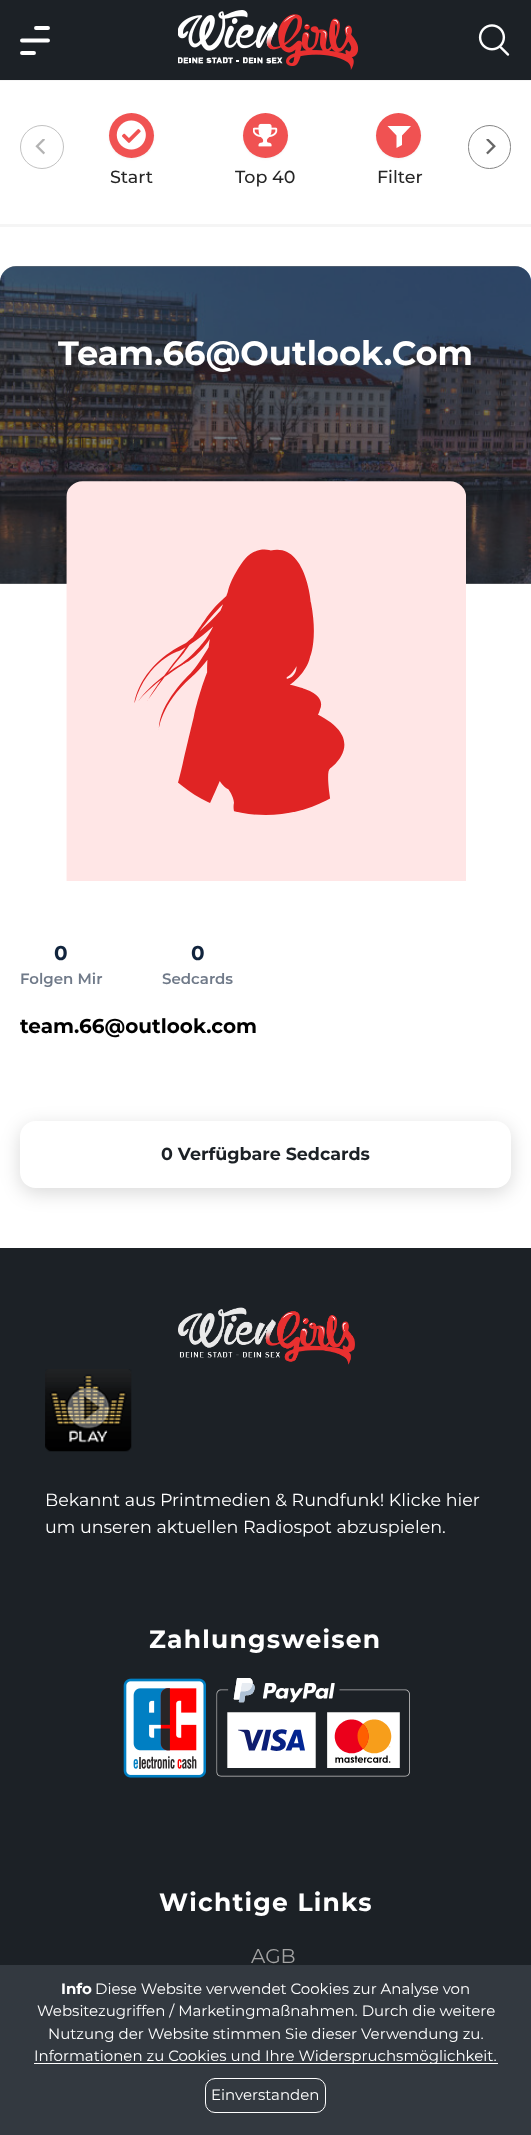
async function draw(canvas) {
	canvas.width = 531;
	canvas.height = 2135;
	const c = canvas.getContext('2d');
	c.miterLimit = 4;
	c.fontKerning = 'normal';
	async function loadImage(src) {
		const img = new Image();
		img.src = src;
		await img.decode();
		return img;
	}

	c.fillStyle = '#fff';
	c.fillRect(0, 0, 531, 2135);
	c.fillStyle = '#1c2126';
	c.fillRect(0, 0, 531, 80);
	c.fillStyle = '#f5f5f5';
	c.fillRect(0, 80, 531, 1);
	c.beginPath();
	c.moveTo(36, 28);
	c.lineTo(48, 28);
	c.moveTo(22, 40.5);
	c.lineTo(48, 40.5);
	c.moveTo(22, 53);
	c.lineTo(34, 53);
	c.strokeStyle = '#fff';
	c.lineWidth = 3.9;
	c.lineCap = 'round';
	c.stroke();
	c.drawImage(await loadImage('img1.png'), 178, 10, 181, 60);
	c.drawImage(await loadImage('img2.png'), 478, 24, 32, 32);
	c.fillRect(0, 224, 531, 3);
	c.beginPath();
	c.arc(42, 147, 21.5, 0, 2 * Math.PI);
	c.strokeStyle = '#c2c2c2';
	c.lineWidth = 1;
	c.stroke();
	c.drawImage(await loadImage('img3.png'), 35, 139, 10, 16);
	c.beginPath();
	c.roundRect(468.5, 125.5, 42, 43, 21);
	c.strokeStyle = '#858585';
	c.stroke();
	c.drawImage(await loadImage('img4.png'), 486, 139, 10, 16);
	c.fillStyle = '#0000000d';
	c.filter = 'blur(1px)';
	c.beginPath();
	c.roundRect(109, 114, 45, 45, 22.5);
	c.fill();
	c.filter = 'none';
	c.fillStyle = '#f05252';
	c.beginPath();
	c.arc(131.5, 135.5, 22.5, 0, 2 * Math.PI);
	c.fill();
	c.drawImage(await loadImage('img5.png'), 116, 120, 30, 30);
	c.font = '500 17.5px Montserrat';
	c.fillStyle = '#262626';
	c.fillText('Start', 110, 183);
	c.fillStyle = '#0000000d';
	c.filter = 'blur(1px)';
	c.beginPath();
	c.roundRect(243, 114, 45, 45, 22.5);
	c.fill();
	c.filter = 'none';
	c.fillStyle = '#f05252';
	c.beginPath();
	c.arc(265.5, 135.5, 22.5, 0, 2 * Math.PI);
	c.fill();
	c.drawImage(await loadImage('img6.png'), 253, 123, 25, 24);
	c.fillStyle = '#262626';
	c.fillText('Top 40', 235, 183);
	c.fillStyle = '#0000000d';
	c.filter = 'blur(1px)';
	c.beginPath();
	c.roundRect(376, 114, 45, 45, 22.5);
	c.fill();
	c.filter = 'none';
	c.fillStyle = '#f05252';
	c.beginPath();
	c.arc(398.5, 135.5, 22.5, 0, 2 * Math.PI);
	c.fill();
	c.fillStyle = '#fff';
	c.beginPath();
	c.moveTo(411, 126);
	c.lineTo(387.5, 126);
	c.lineTo(396.5, 135.5);
	c.lineTo(396.5, 148);
	c.lineTo(402, 145);
	c.lineTo(402, 135.5);
	c.closePath();
	c.fill();
	c.fillStyle = '#262626';
	c.fillText('Filter', 377, 183);
	c.drawImage(await loadImage('img7.png'), 0, 266, 531, 318);
	c.fillStyle = '#1c212699';
	c.beginPath();
	c.roundRect(0, 266, 531, 318, [16, 16, 0, 0]);
	c.fill();
	c.font = 'bold 33.75px Montserrat';
	c.fillStyle = '#fff';
	c.fillText('Team.66@Outlook.Com', 58, 365);
	c.drawImage(await loadImage('img8.png'), 66, 481, 400, 400);
	c.font = 'bold 20px Montserrat';
	c.fillStyle = '#11243d';
	c.fillText('0', 54, 960);
	c.font = '600 15px Montserrat';
	c.fillStyle = '#707a89';
	c.fillText('Folgen Mir', 20, 984);
	c.font = 'bold 20px Montserrat';
	c.fillStyle = '#11243d';
	c.fillText('0', 191, 960);
	c.font = '600 15px Montserrat';
	c.fillStyle = '#707a89';
	c.fillText('Sedcards', 162, 984);
	c.font = 'bold 20px Montserrat';
	c.fillStyle = '#000';
	c.fillText('team.66@outlook.com', 20, 1033);
	c.save();
	c.beginPath();
	c.moveTo(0, 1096);
	c.lineTo(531, 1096);
	c.lineTo(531, 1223);
	c.lineTo(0, 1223);
	c.closePath();
	c.moveTo(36, 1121);
	c.lineTo(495, 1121);
	c.bezierCurveTo(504, 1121, 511, 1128, 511, 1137);
	c.lineTo(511, 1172);
	c.bezierCurveTo(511, 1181, 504, 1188, 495, 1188);
	c.lineTo(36, 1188);
	c.bezierCurveTo(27, 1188, 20, 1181, 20, 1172);
	c.lineTo(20, 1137);
	c.bezierCurveTo(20, 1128, 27, 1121, 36, 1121);
	c.closePath();
	c.clip('evenodd');
	c.fillStyle = '#00000026';
	c.filter = 'blur(9.5px)';
	c.beginPath();
	c.roundRect(20, 1126, 491, 67, 16);
	c.fill();
	c.filter = 'none';
	c.restore();
	c.font = 'bold 17.5px Montserrat';
	c.fillStyle = '#1c2126';
	c.fillText('0 Verfügbare Sedcards', 161, 1160);
	c.fillRect(0, 1248, 531, 717);
	c.drawImage(await loadImage('img9.png'), 178, 1307, 177, 58);
	c.drawImage(await loadImage('img10.png'), 45, 1369, 87, 83);
	c.font = '17.5px Montserrat';
	c.fillStyle = '#fff';
	c.fillText('Bekannt aus Printmedien & Rundfunk! Klicke hier', 45, 1506);
	c.fillText('um unseren aktuellen Radiospot abzuspielen.', 45, 1533);
	c.letterSpacing = '1.25px';
	c.font = 'bold 25px Montserrat';
	c.fillText('Zahlungsweisen', 149, 1648);
	c.drawImage(await loadImage('img11.png'), 123, 1678, 83, 100);
	c.drawImage(await loadImage('img12.png'), 216, 1678, 194, 99);
	c.fillText('Wichtige Links', 159, 1911);
	c.letterSpacing = '0px';
	c.font = '20px Montserrat';
	c.fillStyle = '#a3a3a3';
	c.fillText('AGB', 251, 1963);
	c.fillStyle = '#333940';
	c.fillRect(0, 1965, 531, 170);
	c.font = 'bold 15px Montserrat';
	c.fillStyle = '#fff';
	c.fillText('Info', 61, 1994);
	c.font = '15px Montserrat';
	for (const [text, x, y] of [
		['Diese Website verwendet Cookies zur Analyse von', 95, 1994],
		['Websitezugriffen / Marketingmaßnahmen. Durch die weitere', 37, 2016],
		['Nutzung der Website stimmen Sie dieser Verwendung zu.', 48, 2039],
	]) {
		c.fillText(text, x, y);
	}
	c.fillRect(34, 2063, 464, 1);
	c.fillText('Informationen zu Cookies und Ihre Widerspruchsmöglichkeit.', 34, 2061);
	c.beginPath();
	c.roundRect(205.5, 2078.5, 120, 34, 9.5);
	c.strokeStyle = '#fff';
	c.stroke();
	c.fillText('Einverstanden', 211, 2100);
}

draw(document.querySelector('canvas'));
